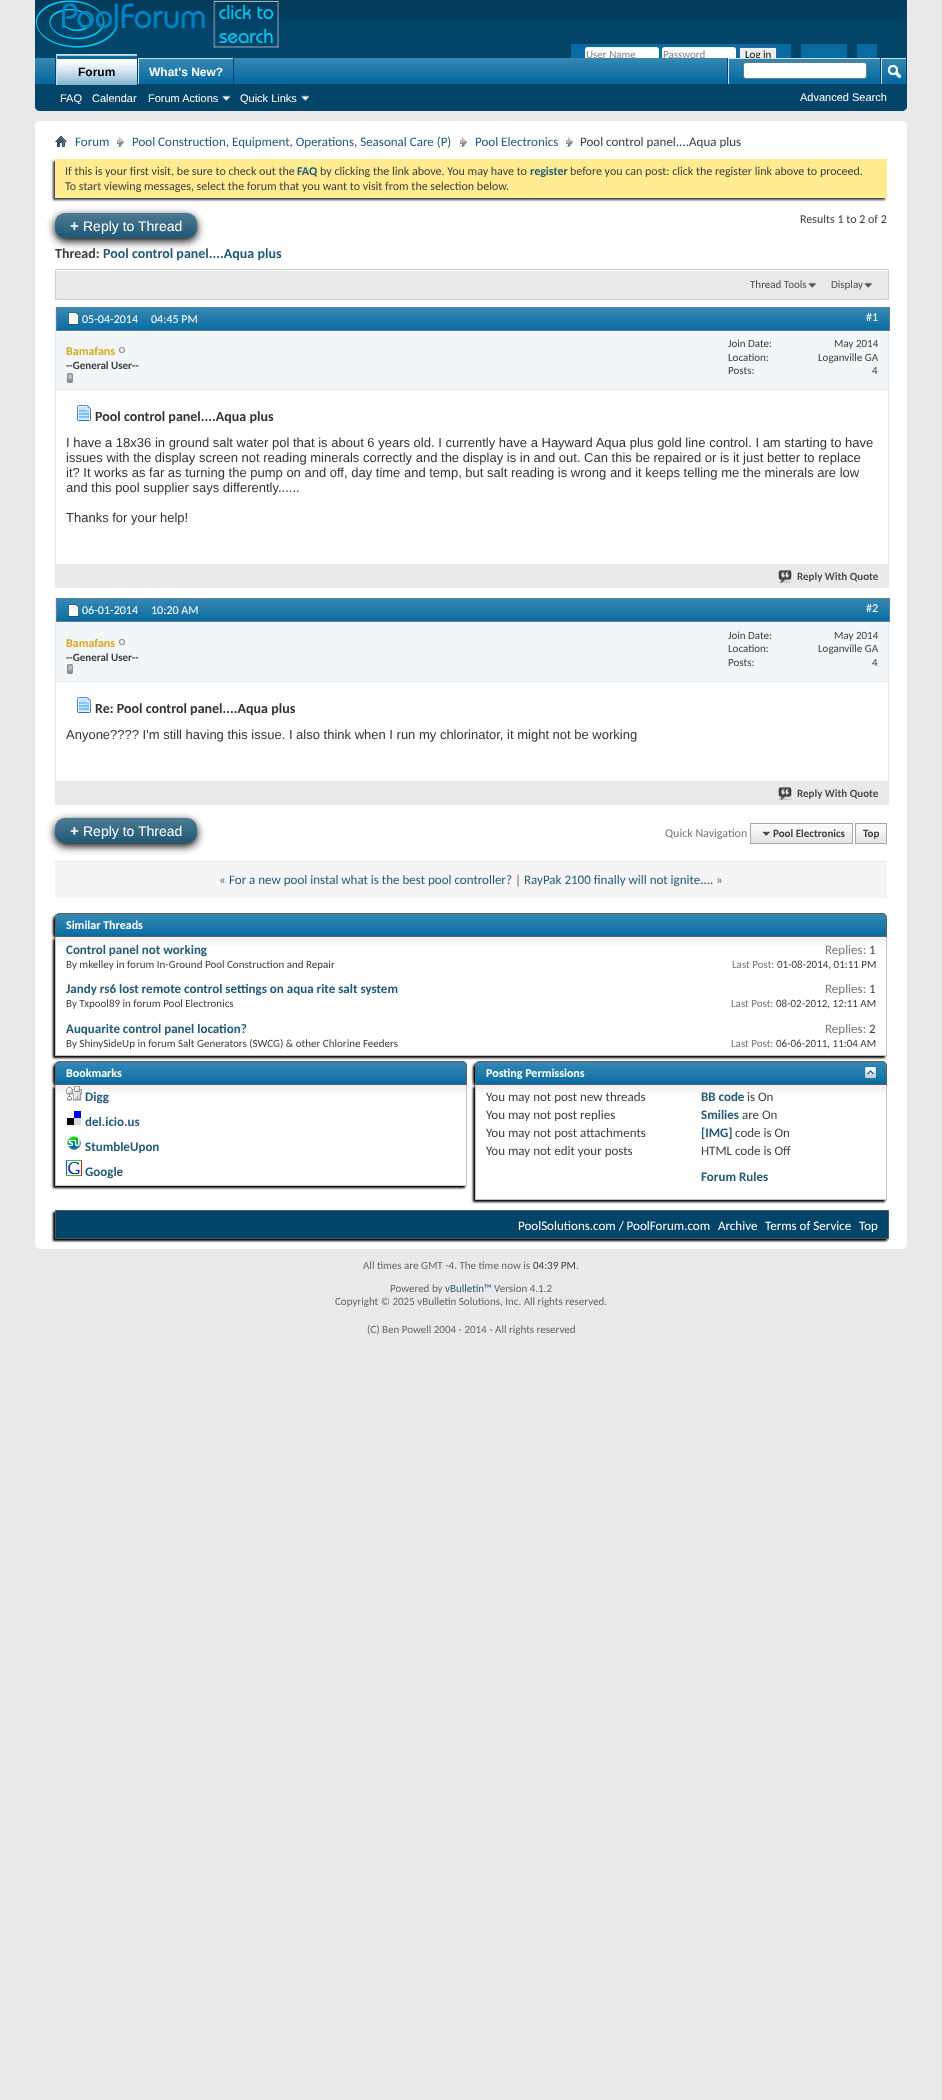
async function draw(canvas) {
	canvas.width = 942;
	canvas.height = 2100;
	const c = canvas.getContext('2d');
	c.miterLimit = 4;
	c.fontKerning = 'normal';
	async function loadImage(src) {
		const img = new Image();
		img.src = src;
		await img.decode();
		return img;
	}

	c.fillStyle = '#e9e9e9';
	c.fillRect(0, 0, 942, 2100);
	c.fillStyle = '#034569';
	c.beginPath();
	c.roundRect(35, 0, 872, 111, [0, 0, 5, 5]);
	c.fill();
	c.drawImage(await loadImage('img1.png'), 35, 0, 872, 23);
	c.drawImage(await loadImage('img2.png'), 35, 0, 244, 48);
	c.fillStyle = '#086ca2';
	c.fillRect(571, 44, 220, 14);
	c.fillStyle = '#fff';
	c.beginPath();
	c.roundRect(585, 47, 74, 15, 3);
	c.fill();
	c.font = '11px Carlito';
	c.fillStyle = '#828282';
	c.fillText('User Name', 586, 58);
	c.fillStyle = '#fff';
	c.beginPath();
	c.roundRect(662, 47, 74, 15, 3);
	c.fill();
	c.fillStyle = '#828282';
	c.fillText('Password', 663, 58);
	c.fillStyle = '#efefef';
	c.fillRect(740, 48, 36, 10);
	c.strokeStyle = '#415d8d';
	c.strokeRect(739.5, 47.5, 37, 14);
	c.fillStyle = '#000';
	c.fillText('Log in', 745, 58);
	c.fillStyle = '#086ca2';
	c.fillRect(801, 44, 46, 14);
	c.fillRect(857, 44, 20, 14);
	c.fillStyle = '#034569';
	c.beginPath();
	c.roundRect(35, 58, 872, 53, [0, 0, 5, 5]);
	c.fill();
	c.fillStyle = '#086ca2';
	c.fillRect(35, 58, 871, 26);
	c.drawImage(await loadImage('img3.png'), 35, 58, 871, 20);
	for (const [x, y, w, h, color] of [
		[137, 58, 1, 26, '#034569'],
		[55, 58, 1, 26, '#034569'],
		[57, 55, 80, 30, '#086ca2'],
	]) {
		c.fillStyle = color;
		c.fillRect(x, y, w, h);
	}
	c.drawImage(await loadImage('img4.png'), 57, 55, 80, 30);
	c.fillStyle = '#cedfeb';
	c.fillRect(56, 54, 81, 1);
	c.fillRect(56, 54, 1, 31);
	c.font = 'bold 12px Liberation Sans';
	c.fillStyle = '#000';
	c.fillText('Forum', 78, 76);
	for (const [x, y, w, h, color] of [
		[138, 58, 95, 1, '#cedfeb'],
		[138, 58, 1, 27, '#cedfeb'],
		[138, 84, 1, 1, '#034569'],
	]) {
		c.fillStyle = color;
		c.fillRect(x, y, w, h);
	}
	c.font = '11px Liberation Sans';
	c.fillStyle = '#fff';
	for (const [text, x, y] of [
		['FAQ', 60, 102],
		['Calendar', 92, 102],
		['Forum Actions', 148, 102],
	]) {
		c.fillText(text, x, y);
	}
	c.drawImage(await loadImage('img5.png'), 222, 95, 9, 6);
	c.fillText('Quick Links', 240, 102);
	c.drawImage(await loadImage('img5.png'), 301, 95, 9, 6);
	c.fillStyle = '#034569';
	c.fillRect(233, 58, 1, 27);
	c.fillStyle = '#086ca2';
	c.fillRect(139, 59, 94, 19);
	c.drawImage(await loadImage('img6.png'), 139, 59, 94, 20);
	c.font = 'bold 12px Liberation Sans';
	c.fillStyle = '#fff';
	c.fillText('What\'s New?', 149, 76);
	for (const [x, y, w, h, color] of [
		[727, 58, 1, 26, '#034569'],
		[728, 58, 152, 1, '#cedfeb'],
		[728, 58, 1, 26, '#cedfeb'],
	]) {
		c.fillStyle = color;
		c.fillRect(x, y, w, h);
	}
	c.fillStyle = '#fff';
	c.beginPath();
	c.roundRect(743.5, 62.5, 123, 16, 2.5);
	c.fill();
	c.strokeStyle = '#5a7f97';
	c.stroke();
	for (const [x, y, w, h, color] of [
		[880, 58, 1, 26, '#034569'],
		[881, 58, 25, 1, '#cedfeb'],
		[881, 58, 1, 26, '#cedfeb'],
	]) {
		c.fillStyle = color;
		c.fillRect(x, y, w, h);
	}
	c.drawImage(await loadImage('img7.png'), 888, 65, 13, 14);
	c.font = '11px Liberation Sans';
	c.fillStyle = '#fff';
	c.fillText('Advanced Search', 800, 101);
	c.beginPath();
	c.roundRect(35, 121, 872, 1128, 5);
	c.fill();
	c.drawImage(await loadImage('img8.png'), 55, 136, 12, 11);
	c.drawImage(await loadImage('img9.png'), 117, 137, 7, 10);
	c.font = '13px Carlito';
	c.fillStyle = '#235b79';
	c.fillText('Forum', 75, 146);
	c.drawImage(await loadImage('img9.png'), 460, 137, 7, 10);
	c.fillText('Pool Construction, Equipment, Operations, Seasonal Care (P)', 132, 146);
	c.drawImage(await loadImage('img9.png'), 566, 137, 7, 10);
	c.fillText('Pool Electronics', 475, 146);
	c.fillStyle = '#3e3e3e';
	c.fillText('Pool control panel....Aqua plus', 580, 146);
	c.filter = 'blur(1px)';
	c.beginPath();
	c.rect(53, 161, 832, 39);
	c.fill();
	c.filter = 'none';
	c.fillStyle = '#ffeb90';
	c.fillRect(55, 159, 832, 39);
	c.font = '12px Carlito';
	c.fillStyle = '#3e3e3e';
	c.fillText('If this is your first visit, be sure to check out the', 65, 175);
	c.font = 'bold 12px Carlito';
	c.fillStyle = '#235b79';
	c.fillText('FAQ', 297, 175);
	c.font = '12px Carlito';
	c.fillStyle = '#3e3e3e';
	c.fillText('by clicking the link above. You may have to', 320, 175);
	c.font = 'bold 12px Carlito';
	c.fillStyle = '#235b79';
	c.fillText('register', 530, 175);
	c.font = '12px Carlito';
	c.fillStyle = '#3e3e3e';
	for (const [text, x, y] of [
		['before you can post: click the register link above to proceed.', 570, 175],
		['To start viewing messages, select the forum that you want to visit from the selection below.', 65, 190],
		['Results 1 to 2 of 2', 800, 223],
	]) {
		c.fillText(text, x, y);
	}
	c.fillStyle = '#000';
	c.filter = 'blur(4px)';
	c.beginPath();
	c.roundRect(55, 216, 142, 25, 10);
	c.fill();
	c.filter = 'none';
	c.fillStyle = '#235b79';
	c.beginPath();
	c.roundRect(55, 213, 142, 25, 10);
	c.fill();
	c.drawImage(await loadImage('img10.png'), 55, 213, 142, 20);
	c.font = 'bold 15px Liberation Sans';
	c.fillStyle = '#fff';
	c.fillText('+', 70, 231);
	c.font = '14px Liberation Sans';
	c.fillText('Reply to Thread', 83, 231);
	c.font = 'bold 14px Carlito';
	c.fillStyle = '#3e3e3e';
	c.fillText('Thread:', 55, 258);
	c.fillStyle = '#235b79';
	c.fillText('Pool control panel....Aqua plus', 103, 258);
	c.fillStyle = '#e9e9e9';
	c.fillRect(56, 271, 832, 28);
	c.strokeStyle = '#cecece';
	c.strokeRect(55.5, 269.5, 833, 30);
	c.drawImage(await loadImage('img11.png'), 808, 282, 9, 7);
	c.font = '11px Carlito';
	c.fillStyle = '#4e4e4e';
	c.fillText('Thread Tools', 750, 288);
	c.drawImage(await loadImage('img11.png'), 864, 282, 9, 7);
	c.fillText('Display', 831, 288);
	c.strokeStyle = '#e9e9e9';
	c.strokeRect(55.5, 307.5, 833, 280);
	c.fillStyle = '#086ca2';
	c.fillRect(57, 308, 832, 22);
	c.drawImage(await loadImage('img12.png'), 57, 308, 832, 20);
	c.strokeStyle = '#5a7f97';
	c.strokeRect(56.5, 307.5, 833, 23);
	c.drawImage(await loadImage('img13.png'), 68, 312, 11, 13);
	c.font = '12px Carlito';
	c.fillStyle = '#fff';
	for (const [text, x, y] of [
		['05-04-2014', 82, 323],
		['04:45 PM', 151, 323],
		['#1', 866, 321],
	]) {
		c.fillText(text, x, y);
	}
	c.fillStyle = '#f2f6f8';
	c.fillRect(56, 331, 832, 58);
	c.fillStyle = '#e9e9e9';
	c.fillRect(56, 389, 832, 1);
	c.font = 'bold 12px Carlito';
	c.fillStyle = '#daa520';
	c.fillText('Bamafans', 66, 355);
	c.drawImage(await loadImage('img14.png'), 119, 347, 6, 6);
	c.font = 'bold 11px Carlito';
	c.fillStyle = '#3e3e3e';
	c.fillText('--General User--', 66, 369);
	c.drawImage(await loadImage('img15.png'), 66, 373, 7, 10);
	c.font = '11px Carlito';
	for (const [text, x, y] of [
		['Join Date:', 728, 347],
		['May 2014', 834, 347],
		['Location:', 728, 361],
		['Loganville GA', 818, 361],
		['Posts:', 728, 374],
		['4', 872, 374],
	]) {
		c.fillText(text, x, y);
	}
	c.drawImage(await loadImage('img16.png'), 77, 405, 14, 16);
	c.font = 'bold 14px Carlito';
	c.fillStyle = '#333';
	c.fillText('Pool control panel....Aqua plus', 95, 421);
	c.font = '13px Liberation Sans';
	for (const [text, x, y] of [
		['I have a 18x36 in ground salt water pol that is about 6 years old. I currently have a Hayward Aqua plus gold line control. I am starting to have', 66, 447],
		['issues with the display screen not reading minerals correctly and the display is in and out. Can this be repaired or is it just better to replace', 66, 462],
		['it? It works as far as turning the pump on and off, day time and temp, but salt reading is wrong and it keeps telling me the minerals are low', 66, 477],
		['and this pool supplier says differently......', 66, 492],
		['Thanks for your help!', 66, 522],
	]) {
		c.fillText(text, x, y);
	}
	c.fillStyle = '#e9e9e9';
	c.fillRect(56, 564, 832, 23);
	c.drawImage(await loadImage('img17.png'), 778, 570, 14, 13);
	c.font = 'bold 11px Carlito';
	c.fillStyle = '#4e4e4e';
	c.fillText('Reply With Quote', 797, 580);
	c.strokeStyle = '#e9e9e9';
	c.strokeRect(55.5, 598.5, 833, 206);
	c.fillStyle = '#086ca2';
	c.fillRect(57, 599, 832, 22);
	c.drawImage(await loadImage('img12.png'), 57, 599, 832, 20);
	c.strokeStyle = '#5a7f97';
	c.strokeRect(56.5, 598.5, 833, 23);
	c.drawImage(await loadImage('img18.png'), 68, 604, 11, 13);
	c.font = '12px Carlito';
	c.fillStyle = '#fff';
	for (const [text, x, y] of [
		['06-01-2014', 82, 614],
		['10:20 AM', 151, 614],
		['#2', 866, 612],
	]) {
		c.fillText(text, x, y);
	}
	c.fillStyle = '#f2f6f8';
	c.fillRect(56, 622, 832, 59);
	c.fillStyle = '#e9e9e9';
	c.fillRect(56, 681, 832, 1);
	c.font = 'bold 12px Carlito';
	c.fillStyle = '#daa520';
	c.fillText('Bamafans', 66, 647);
	c.drawImage(await loadImage('img14.png'), 119, 639, 6, 6);
	c.font = 'bold 11px Carlito';
	c.fillStyle = '#3e3e3e';
	c.fillText('--General User--', 66, 661);
	c.drawImage(await loadImage('img15.png'), 66, 664, 7, 10);
	c.font = '11px Carlito';
	for (const [text, x, y] of [
		['Join Date:', 728, 639],
		['May 2014', 834, 639],
		['Location:', 728, 652],
		['Loganville GA', 818, 652],
		['Posts:', 728, 666],
		['4', 872, 666],
	]) {
		c.fillText(text, x, y);
	}
	c.drawImage(await loadImage('img16.png'), 77, 697, 14, 16);
	c.font = 'bold 14px Carlito';
	c.fillStyle = '#333';
	c.fillText('Re: Pool control panel....Aqua plus', 95, 713);
	c.font = '13px Liberation Sans';
	c.fillText('Anyone???? I\'m still having this issue. I also think when I run my chlorinator, it might not be working', 66, 739);
	c.fillStyle = '#e9e9e9';
	c.fillRect(56, 781, 832, 23);
	c.drawImage(await loadImage('img17.png'), 778, 787, 14, 13);
	c.font = 'bold 11px Carlito';
	c.fillStyle = '#4e4e4e';
	c.fillText('Reply With Quote', 797, 797);
	c.fillStyle = '#000';
	c.filter = 'blur(4px)';
	c.beginPath();
	c.roundRect(55, 821, 142, 25, 10);
	c.fill();
	c.filter = 'none';
	c.fillStyle = '#235b79';
	c.beginPath();
	c.roundRect(55, 818, 142, 25, 10);
	c.fill();
	c.drawImage(await loadImage('img10.png'), 55, 818, 142, 20);
	c.font = 'bold 15px Liberation Sans';
	c.fillStyle = '#fff';
	c.fillText('+', 70, 836);
	c.font = '14px Liberation Sans';
	c.fillText('Reply to Thread', 83, 836);
	c.font = '12px Carlito';
	c.fillStyle = '#777';
	c.fillText('Quick Navigation', 665, 837);
	c.fillStyle = '#e9e9e9';
	c.fillRect(751, 824, 101, 19);
	c.drawImage(await loadImage('img19.png'), 751, 824, 101, 12);
	c.fillRect(856, 824, 30, 19);
	c.drawImage(await loadImage('img20.png'), 856, 824, 30, 12);
	c.strokeStyle = '#a8a8a8';
	c.strokeRect(750.5, 823.5, 102, 20);
	c.drawImage(await loadImage('img21.png'), 762, 831, 9, 6);
	c.font = 'bold 11px Carlito';
	c.fillStyle = '#3e3e3e';
	c.fillText('Pool Electronics', 773, 837);
	c.strokeRect(855.5, 823.5, 31, 20);
	c.fillText('Top', 863, 837);
	c.fillStyle = '#f5f5f5';
	c.fillRect(55, 862, 832, 36);
	c.fillStyle = '#e7e7e7';
	c.fillRect(55, 861, 832, 1);
	c.font = '13px Carlito';
	c.fillStyle = '#5d5d5d';
	c.fillText('«', 219, 884);
	c.fillStyle = '#235b79';
	c.fillText('For a new pool instal what is the best pool controller?', 229, 884);
	c.fillStyle = '#5d5d5d';
	c.fillText('|', 515, 884);
	c.fillStyle = '#235b79';
	c.fillText('RayPak 2100 finally will not ignite....', 524, 884);
	c.fillStyle = '#5d5d5d';
	c.fillText('»', 716, 884);
	c.fillStyle = '#000';
	c.filter = 'blur(1px)';
	c.beginPath();
	c.roundRect(53, 915, 832, 24, 5);
	c.fill();
	c.filter = 'none';
	c.fillStyle = '#086ca2';
	c.beginPath();
	c.roundRect(55, 913, 832, 24, [5, 5, 0, 0]);
	c.fill();
	c.drawImage(await loadImage('img22.png'), 55, 914, 832, 20);
	c.beginPath();
	c.roundRect(55.5, 913.5, 831, 23, [4.5, 4.5, 0, 0]);
	c.strokeStyle = '#606060';
	c.stroke();
	c.font = 'bold 12px Carlito';
	c.fillStyle = '#fff';
	c.fillText('Similar Threads', 66, 929);
	c.fillStyle = '#000';
	c.filter = 'blur(1px)';
	c.beginPath();
	c.rect(53, 939, 832, 119);
	c.fill();
	c.filter = 'none';
	c.fillStyle = '#fff';
	c.fillRect(56, 937, 830, 118);
	c.drawImage(await loadImage('img23.png'), 56, 937, 830, 9);
	for (const [x, y, w, h, color] of [
		[886, 937, 1, 119, '#c4c4c4'],
		[55, 1055, 832, 1, '#c4c4c4'],
		[55, 937, 1, 119, '#c4c4c4'],
	]) {
		c.fillStyle = color;
		c.fillRect(x, y, w, h);
	}
	c.font = 'bold 13px Carlito';
	c.fillStyle = '#235b79';
	c.fillText('Control panel not working', 66, 954);
	c.font = '11px Carlito';
	c.fillStyle = '#3e3e3e';
	c.fillText('By mkelley in forum In-Ground Pool Construction and Repair', 66, 968);
	c.font = '13px Carlito';
	c.fillStyle = '#777';
	c.fillText('Replies:', 825, 954);
	c.fillStyle = '#3e3e3e';
	c.fillText('1', 869, 954);
	c.font = '11px Carlito';
	c.fillStyle = '#777';
	c.fillText('Last Post:', 732, 968);
	c.fillStyle = '#3e3e3e';
	c.fillText('01-08-2014, 01:11 PM', 777, 968);
	c.font = 'bold 13px Carlito';
	c.fillStyle = '#235b79';
	c.fillText('Jandy rs6 lost remote control settings on aqua rite salt system', 66, 993);
	c.font = '11px Carlito';
	c.fillStyle = '#3e3e3e';
	c.fillText('By Txpool89 in forum Pool Electronics', 66, 1007);
	c.font = '13px Carlito';
	c.fillStyle = '#777';
	c.fillText('Replies:', 825, 993);
	c.fillStyle = '#3e3e3e';
	c.fillText('1', 869, 993);
	c.font = '11px Carlito';
	c.fillStyle = '#777';
	c.fillText('Last Post:', 731, 1007);
	c.fillStyle = '#3e3e3e';
	c.fillText('08-02-2012, 12:11 AM', 776, 1007);
	c.font = 'bold 13px Carlito';
	c.fillStyle = '#235b79';
	c.fillText('Auquarite control panel location?', 66, 1033);
	c.font = '11px Carlito';
	c.fillStyle = '#3e3e3e';
	c.fillText('By ShinySideUp in forum Salt Generators (SWCG) & other Chlorine Feeders', 66, 1047);
	c.font = '13px Carlito';
	c.fillStyle = '#777';
	c.fillText('Replies:', 825, 1033);
	c.fillStyle = '#3e3e3e';
	c.fillText('2', 869, 1033);
	c.font = '11px Carlito';
	c.fillStyle = '#777';
	c.fillText('Last Post:', 731, 1047);
	c.fillStyle = '#3e3e3e';
	c.fillText('06-06-2011, 11:04 AM', 776, 1047);
	c.fillStyle = '#000';
	c.filter = 'blur(1px)';
	c.beginPath();
	c.roundRect(53, 1063, 412, 24, 5);
	c.fill();
	c.filter = 'none';
	c.fillStyle = '#086ca2';
	c.beginPath();
	c.roundRect(55, 1061, 412, 24, [5, 5, 0, 0]);
	c.fill();
	c.drawImage(await loadImage('img24.png'), 55, 1062, 412, 20);
	c.beginPath();
	c.roundRect(55.5, 1061.5, 411, 23, [4.5, 4.5, 0, 0]);
	c.stroke();
	c.font = 'bold 12px Carlito';
	c.fillStyle = '#fff';
	c.fillText('Bookmarks', 66, 1077);
	c.fillStyle = '#000';
	c.filter = 'blur(1px)';
	c.beginPath();
	c.rect(53, 1087, 412, 101);
	c.fill();
	c.filter = 'none';
	c.fillStyle = '#fff';
	c.fillRect(56, 1085, 410, 100);
	c.drawImage(await loadImage('img25.png'), 56, 1085, 410, 9);
	for (const [x, y, w, h, color] of [
		[466, 1085, 1, 101, '#c4c4c4'],
		[55, 1185, 412, 1, '#c4c4c4'],
		[55, 1085, 1, 101, '#c4c4c4'],
	]) {
		c.fillStyle = color;
		c.fillRect(x, y, w, h);
	}
	c.drawImage(await loadImage('img26.png'), 66, 1086, 16, 15);
	c.font = 'bold 13px Carlito';
	c.fillStyle = '#235b79';
	c.fillText('Digg', 85, 1101);
	c.drawImage(await loadImage('img27.png'), 67, 1111, 14, 14);
	c.fillText('del.icio.us', 85, 1126);
	c.drawImage(await loadImage('img28.png'), 67, 1136, 14, 14);
	c.fillText('StumbleUpon', 85, 1151);
	c.drawImage(await loadImage('img29.png'), 66, 1160, 16, 16);
	c.fillText('Google', 85, 1176);
	c.fillStyle = '#000';
	c.filter = 'blur(1px)';
	c.beginPath();
	c.roundRect(473, 1063, 412, 24, 5);
	c.fill();
	c.filter = 'none';
	c.fillStyle = '#086ca2';
	c.beginPath();
	c.roundRect(475, 1061, 412, 24, [5, 5, 0, 0]);
	c.fill();
	c.drawImage(await loadImage('img24.png'), 475, 1062, 412, 20);
	c.beginPath();
	c.roundRect(475.5, 1061.5, 411, 23, [4.5, 4.5, 0, 0]);
	c.stroke();
	c.font = 'bold 12px Carlito';
	c.fillStyle = '#fff';
	c.fillText('Posting Permissions', 486, 1077);
	c.drawImage(await loadImage('img30.png'), 864, 1066, 13, 13);
	c.fillStyle = '#000';
	c.filter = 'blur(1px)';
	c.beginPath();
	c.rect(473, 1087, 412, 115);
	c.fill();
	c.filter = 'none';
	c.fillStyle = '#fff';
	c.fillRect(476, 1085, 410, 114);
	c.drawImage(await loadImage('img25.png'), 476, 1085, 410, 9);
	for (const [x, y, w, h, color] of [
		[886, 1085, 1, 115, '#c4c4c4'],
		[475, 1199, 412, 1, '#c4c4c4'],
		[475, 1085, 1, 115, '#c4c4c4'],
	]) {
		c.fillStyle = color;
		c.fillRect(x, y, w, h);
	}
	c.font = '13px Carlito';
	c.fillStyle = '#3e3e3e';
	for (const [text, x, y] of [
		['You may not post new threads', 486, 1101],
		['You may not post replies', 486, 1119],
		['You may not post attachments', 486, 1137],
		['You may not edit your posts', 486, 1155],
	]) {
		c.fillText(text, x, y);
	}
	c.font = 'bold 13px Carlito';
	c.fillStyle = '#235b79';
	c.fillText('BB code', 701, 1101);
	c.font = '13px Carlito';
	c.fillStyle = '#3e3e3e';
	c.fillText('is On', 747, 1101);
	c.font = 'bold 13px Carlito';
	c.fillStyle = '#235b79';
	c.fillText('Smilies', 701, 1119);
	c.font = '13px Carlito';
	c.fillStyle = '#3e3e3e';
	c.fillText('are On', 742, 1119);
	c.font = 'bold 13px Carlito';
	c.fillStyle = '#235b79';
	c.fillText('[IMG]', 701, 1137);
	c.font = '13px Carlito';
	c.fillStyle = '#3e3e3e';
	c.fillText('code is On', 735, 1137);
	c.fillText('HTML code is Off', 701, 1155);
	c.font = 'bold 13px Carlito';
	c.fillStyle = '#235b79';
	c.fillText('Forum Rules', 701, 1181);
	c.fillStyle = '#000';
	c.filter = 'blur(1px)';
	c.beginPath();
	c.rect(53, 1212, 834, 29);
	c.fill();
	c.filter = 'none';
	c.fillStyle = '#034569';
	c.beginPath();
	c.rect(55.5, 1210.5, 833, 28);
	c.fill();
	c.strokeStyle = '#425769';
	c.stroke();
	c.font = '13px Carlito';
	c.fillStyle = '#fff';
	for (const [text, x, y] of [
		['PoolSolutions.com / PoolForum.com', 518, 1230],
		['Archive', 718, 1230],
		['Terms of Service', 765, 1230],
		['Top', 859, 1230],
	]) {
		c.fillText(text, x, y);
	}
	c.font = '11px Carlito';
	c.fillStyle = '#666';
	c.fillText('All times are GMT -4. The time now is', 363, 1269);
	c.fillStyle = '#3e3e3e';
	c.fillText('04:39 PM', 533, 1269);
	c.fillStyle = '#666';
	c.fillText('.', 576, 1269);
	c.fillText('Powered by', 390, 1292);
	c.fillStyle = '#235b79';
	c.fillText('vBulletin™', 445, 1292);
	c.fillStyle = '#666';
	for (const [text, x, y] of [
		['Version 4.1.2', 494, 1292],
		['Copyright © 2025 vBulletin Solutions, Inc. All rights reserved.', 335, 1305],
		['(C) Ben Powell 2004 - 2014 - All rights reserved', 367, 1333],
	]) {
		c.fillText(text, x, y);
	}
}

draw(document.querySelector('canvas'));
